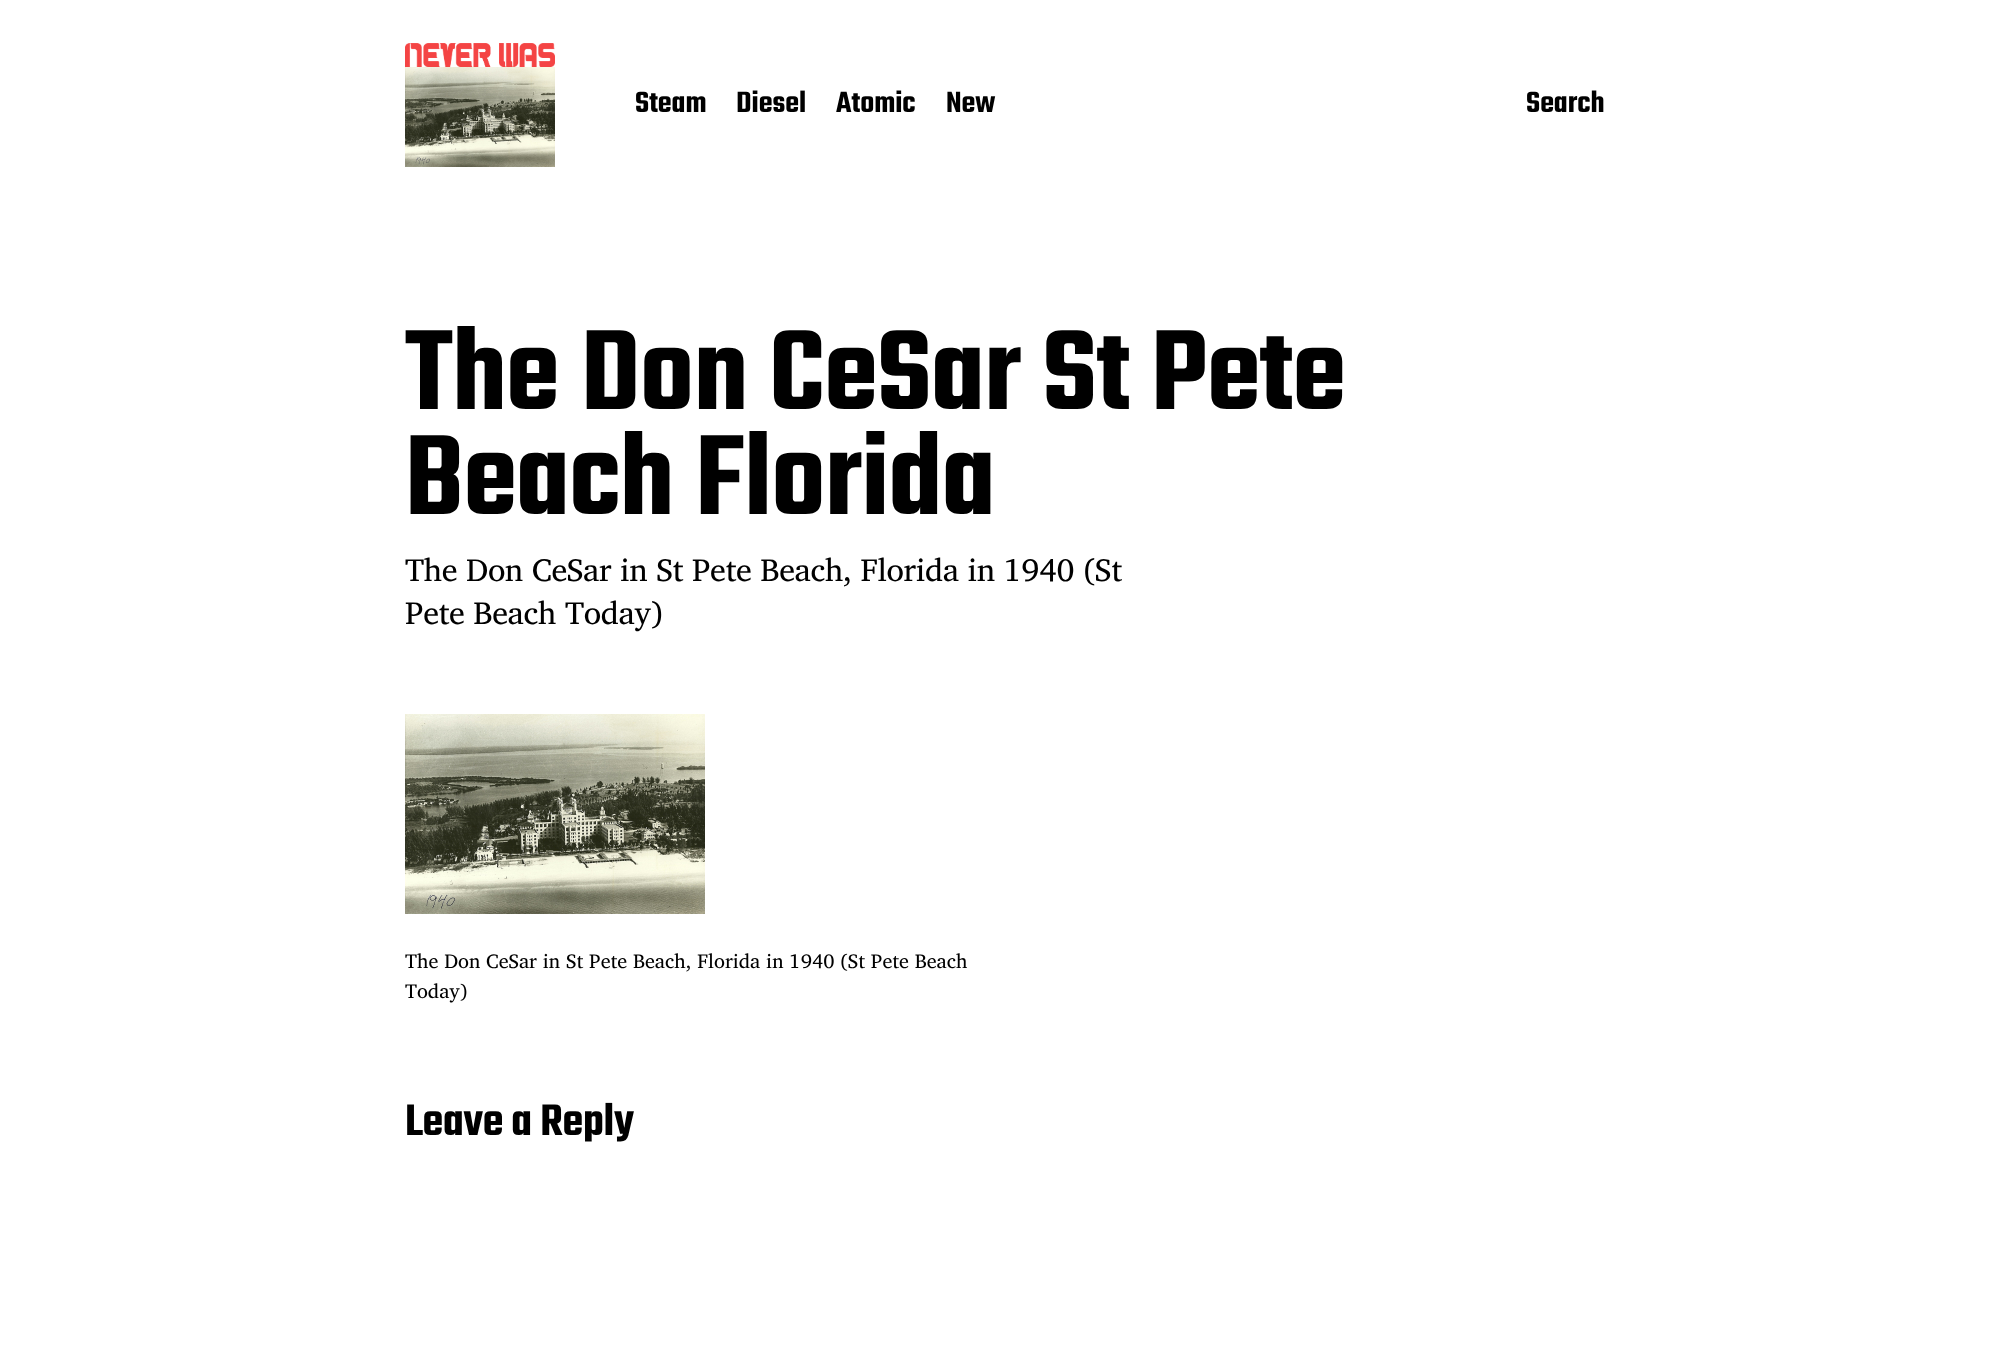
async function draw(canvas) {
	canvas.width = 2009;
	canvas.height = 1368;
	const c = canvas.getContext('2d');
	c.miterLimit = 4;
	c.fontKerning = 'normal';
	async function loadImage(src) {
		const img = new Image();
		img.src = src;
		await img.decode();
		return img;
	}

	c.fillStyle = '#fff';
	c.fillRect(0, 0, 2009, 1368);
	c.drawImage(await loadImage('img1.png'), 405, 43, 150, 24);
	c.drawImage(await loadImage('img2.png'), 405, 67, 150, 100);
	c.font = '600 32px Teko';
	c.fillStyle = '#000';
	for (const [text, x, y] of [
		['Steam', 635, 112],
		['Diesel', 736, 112],
		['Atomic', 836, 112],
		['New', 946, 112],
		['Search', 1526, 112],
	]) {
		c.fillText(text, x, y);
	}
	c.letterSpacing = '-0.6px';
	c.font = '600 124px Teko';
	c.fillText('The Don CeSar St Pete', 405, 409);
	c.fillText('Beach Florida', 405, 514);
	c.letterSpacing = '-0.38px';
	c.font = '32px Charis SIL';
	c.fillText('The Don CeSar in St Pete Beach, Florida in 1940 (St', 405, 581);
	c.fillText('Pete Beach Today)', 405, 624);
	c.drawImage(await loadImage('img3.png'), 405, 714, 300, 200);
	c.letterSpacing = '0px';
	c.font = '20px Charis SIL';
	c.fillText('The Don CeSar in St Pete Beach, Florida in 1940 (St Pete Beach', 405, 968);
	c.fillText('Today)', 405, 998);
	c.letterSpacing = '-0.25px';
	c.font = '600 48px Teko';
	c.fillText('Leave a Reply', 405, 1135);
}

draw(document.querySelector('canvas'));
